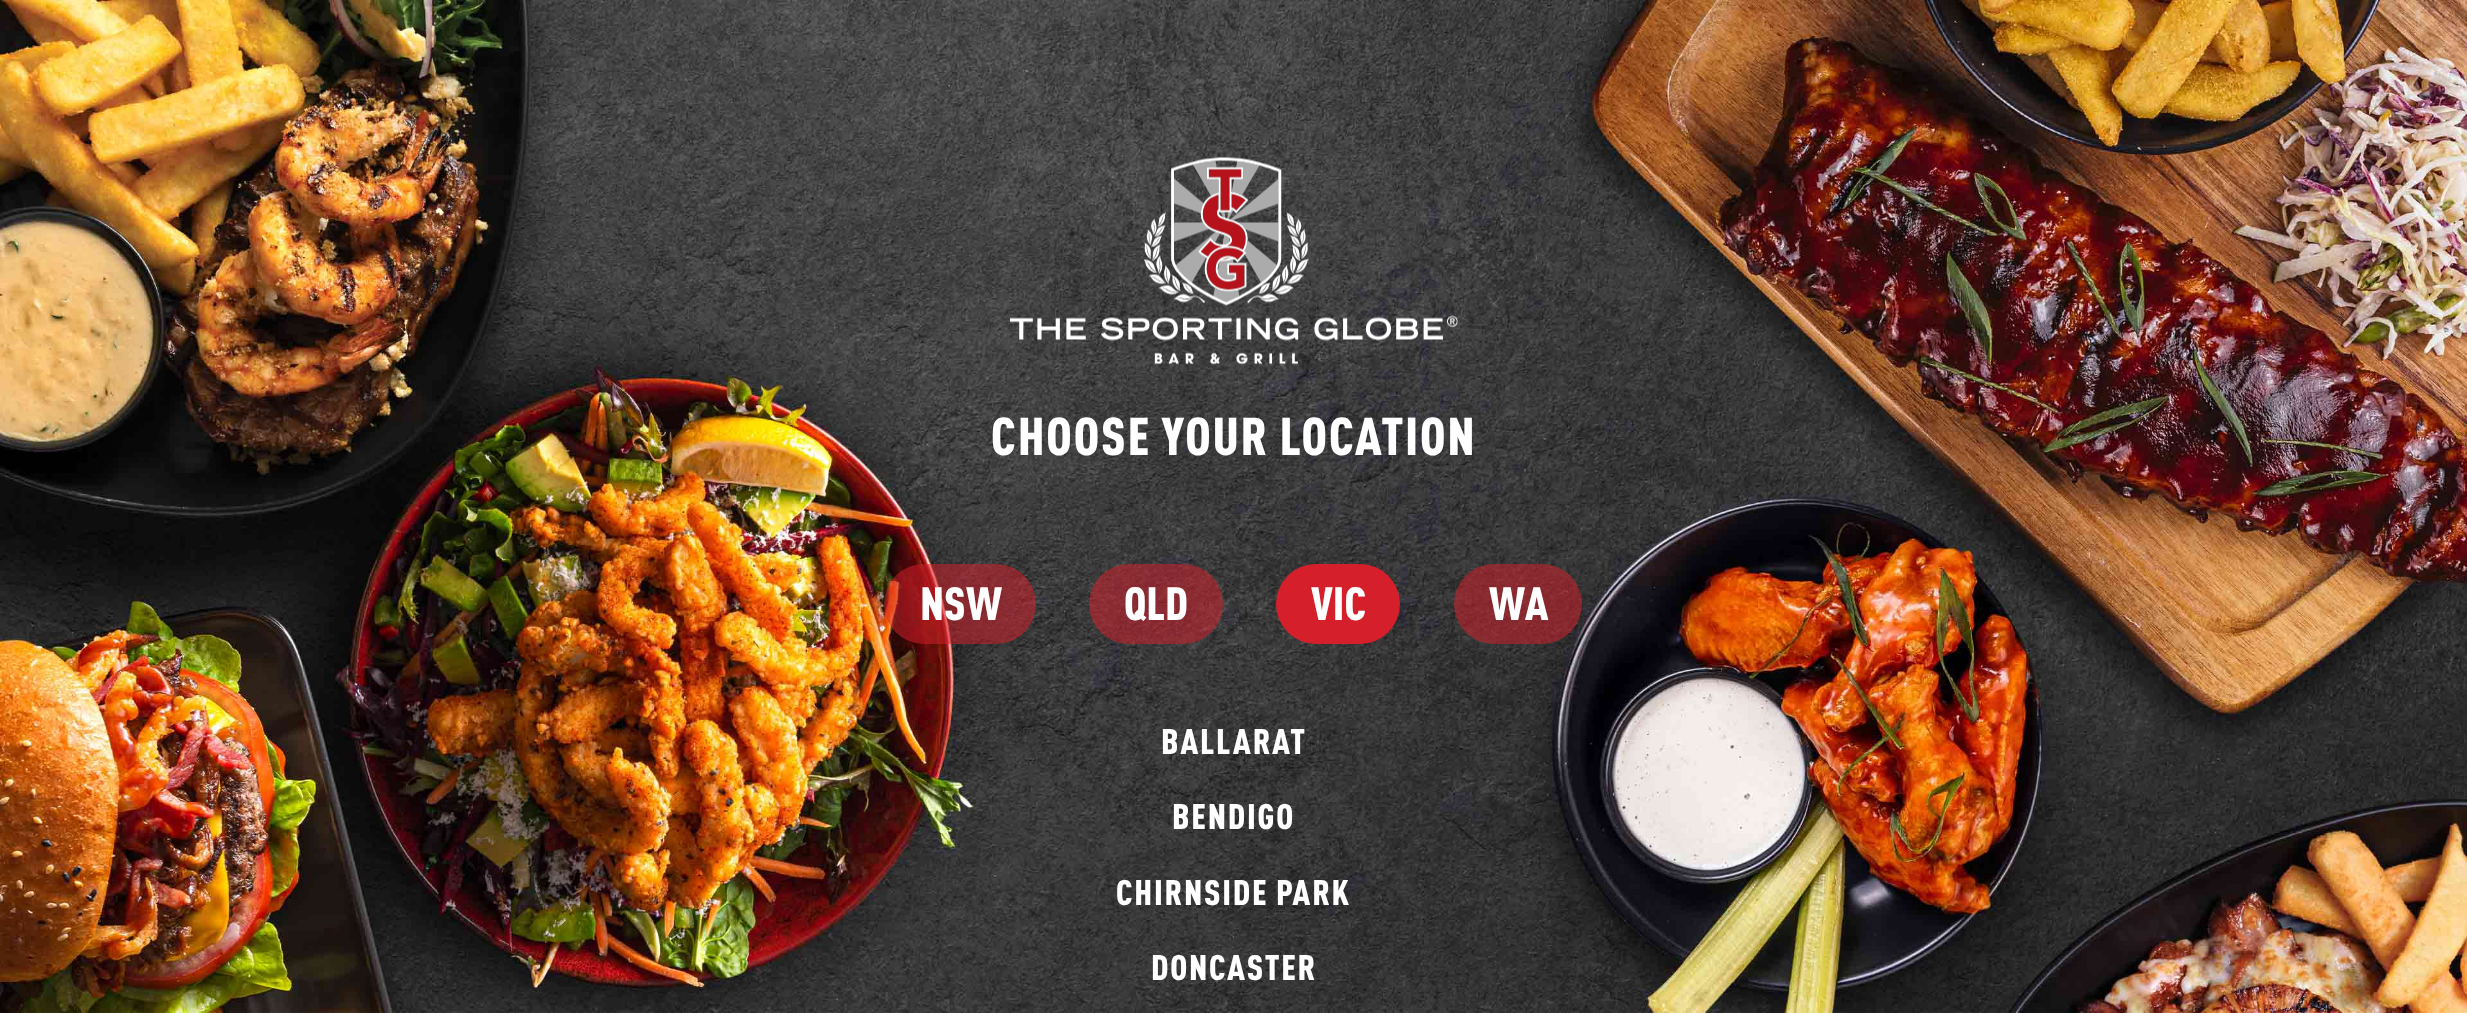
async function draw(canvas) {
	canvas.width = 2467;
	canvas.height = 1013;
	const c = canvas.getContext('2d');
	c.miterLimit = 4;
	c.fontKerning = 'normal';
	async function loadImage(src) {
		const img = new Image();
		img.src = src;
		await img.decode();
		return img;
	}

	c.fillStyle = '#fff';
	c.fillRect(0, 0, 2467, 1013);
	c.drawImage(await loadImage('img1.png'), 0, 0, 2467, 1013);
	c.drawImage(await loadImage('img2.png'), 1010, 157, 448, 208);
	c.letterSpacing = '1.75px';
	c.font = '900 52.5px DIN';
	c.fillText('CHOOSE YOUR LOCATION', 991, 455);
	c.fillStyle = '#d5202b85';
	c.beginPath();
	c.roundRect(884, 564, 152, 80, 40);
	c.fill();
	c.letterSpacing = '0px';
	c.font = '900 46px DIN';
	c.fillStyle = '#fff';
	c.fillText('NSW', 920, 620);
	c.fillStyle = '#d5202b85';
	c.beginPath();
	c.roundRect(1089, 564, 134, 80, 40);
	c.fill();
	c.fillStyle = '#fff';
	c.fillText('QLD', 1124, 620);
	c.fillStyle = '#d5202b';
	c.beginPath();
	c.roundRect(1276, 564, 124, 80, 40);
	c.fill();
	c.fillStyle = '#fff';
	c.fillText('VIC', 1311, 620);
	c.fillStyle = '#d5202b85';
	c.beginPath();
	c.roundRect(1454, 564, 128, 80, 40);
	c.fill();
	c.fillStyle = '#fff';
	c.fillText('WA', 1489, 620);
	c.letterSpacing = '1.75px';
	c.font = '900 35px DIN';
	for (const [text, x, y] of [
		['BALLARAT', 1161, 754],
		['BENDIGO', 1172, 829],
		['CHIRNSIDE PARK', 1116, 905],
		['DONCASTER', 1151, 980],
	]) {
		c.fillText(text, x, y);
	}
}

draw(document.querySelector('canvas'));
